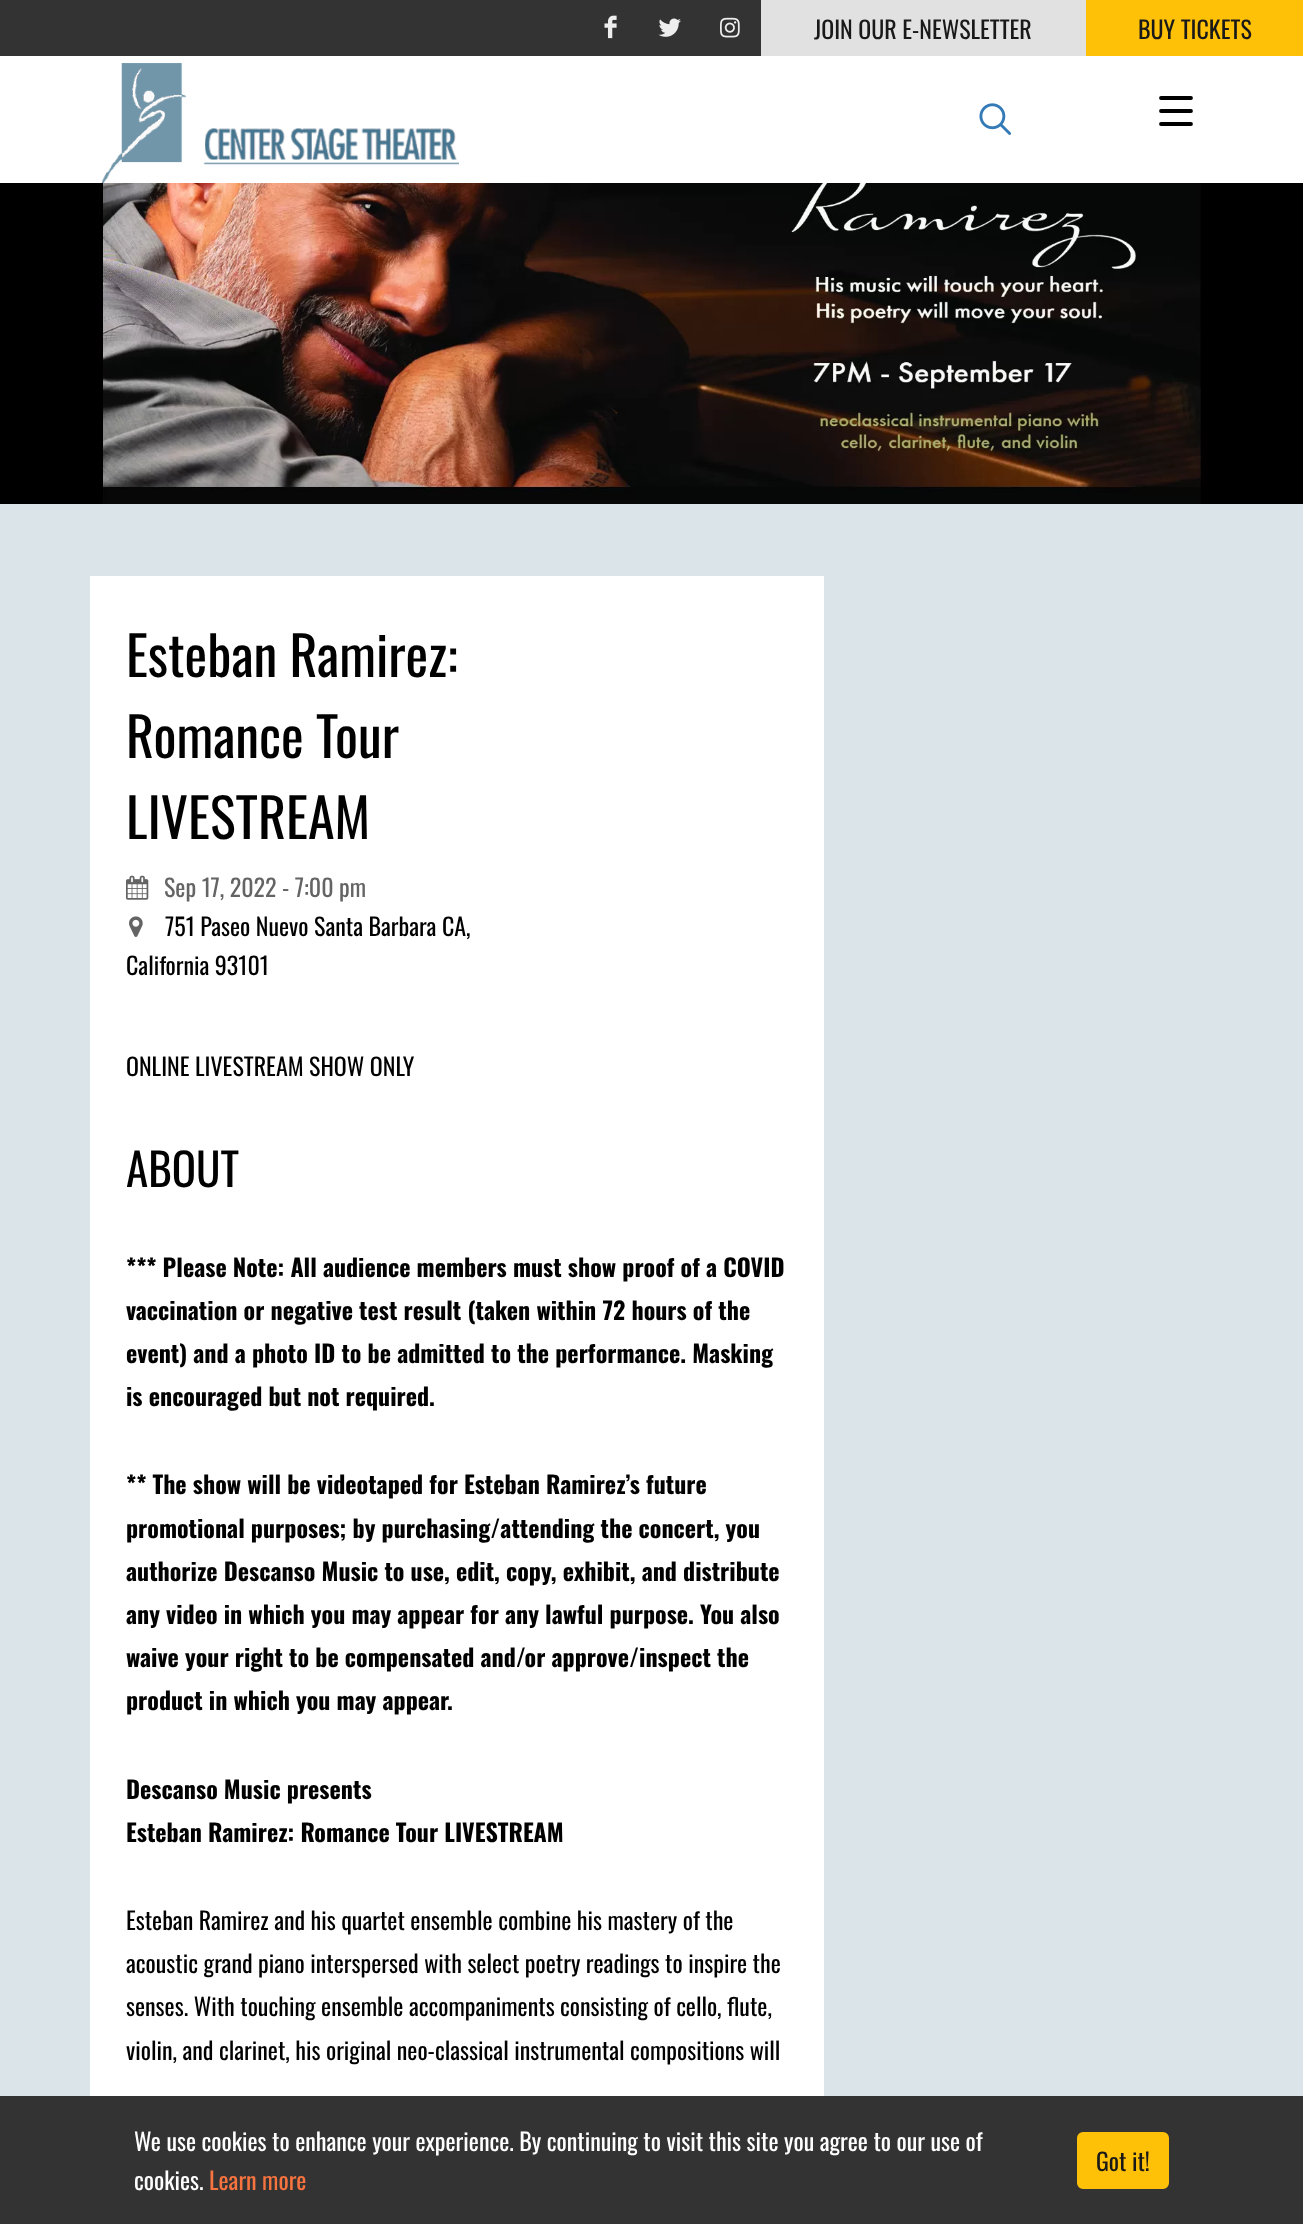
async function draw(canvas) {
	canvas.width = 1303;
	canvas.height = 2224;
	const c = canvas.getContext('2d');
	c.miterLimit = 4;
	c.fontKerning = 'normal';
	async function loadImage(src) {
		const img = new Image();
		img.src = src;
		await img.decode();
		return img;
	}

	c.fillStyle = '#333';
	c.fillRect(0, 0, 1303, 2224);
	c.drawImage(await loadImage('img1.png'), 604, 15, 13, 24);
	c.drawImage(await loadImage('img2.png'), 658, 18, 23, 19);
	c.drawImage(await loadImage('img3.png'), 720, 17, 20, 21);
	c.fillStyle = '#e1e1e1';
	c.fillRect(761, 0, 325, 56);
	c.font = '24px Oswald';
	c.fillStyle = '#191919';
	c.fillText('JOIN OUR E-NEWSLETTER', 814, 39);
	c.fillStyle = '#ffc107';
	c.fillRect(1086, 0, 217, 56);
	c.fillStyle = '#191919';
	c.fillText('BUY TICKETS', 1138, 39);
	c.fillStyle = '#fff';
	c.fillRect(0, 56, 1303, 127);
	c.drawImage(await loadImage('img4.png'), 101, 63, 358, 120);
	c.drawImage(await loadImage('img5.png'), 979, 103, 32, 32);
	c.beginPath();
	c.moveTo(1161, 98);
	c.lineTo(1191, 98);
	c.moveTo(1161, 111);
	c.lineTo(1191, 111);
	c.moveTo(1191, 124);
	c.lineTo(1161, 124);
	c.strokeStyle = '#000';
	c.lineWidth = 3.8;
	c.lineCap = 'round';
	c.stroke();
	c.drawImage(await loadImage('img6.png'), 0, 183, 1303, 321);
	c.fillStyle = '#dae4e9';
	c.fillRect(0, 504, 1303, 1592);
	c.fillStyle = '#fff';
	c.fillRect(90, 576, 734, 1520);
	c.font = '54px Oswald';
	c.fillStyle = '#000';
	for (const [text, x, y] of [
		['Esteban Ramirez:', 126, 677],
		['Romance Tour', 126, 758],
		['LIVESTREAM', 126, 839],
	]) {
		c.fillText(text, x, y);
	}
	c.drawImage(await loadImage('img7.png'), 126, 875, 23, 25);
	c.font = '24px Oswald';
	c.fillStyle = '#646464';
	c.fillText('Sep 17, 2022 - 7:00 pm', 164, 897);
	c.drawImage(await loadImage('img8.png'), 129, 916, 14, 21);
	c.fillStyle = '#000';
	for (const [text, x, y] of [
		['751 Paseo Nuevo Santa Barbara CA,', 165, 936],
		['California 93101', 126, 975],
		['ONLINE LIVESTREAM SHOW ONLY', 126, 1076],
	]) {
		c.fillText(text, x, y);
	}
	c.font = '45px Oswald';
	c.fillText('ABOUT', 126, 1187);
	c.font = 'bold 24px Oswald';
	for (const [text, x, y] of [
		['*** Please Note: All audience members must show proof of a COVID', 126, 1277],
		['vaccination or negative test result (taken within 72 hours of the', 126, 1320],
		['event) and a photo ID to be admitted to the performance. Masking', 126, 1363],
		['is encouraged but not required.', 126, 1406],
		['** The show will be videotaped for Esteban Ramirez’s future', 126, 1494],
		['promotional purposes; by purchasing/attending the concert, you', 126, 1538],
		['authorize Descanso Music to use, edit, copy, exhibit, and distribute', 126, 1581],
		['any video in which you may appear for any lawful purpose. You also', 126, 1624],
		['waive your right to be compensated and/or approve/inspect the', 126, 1667],
		['product in which you may appear.', 126, 1710],
		['Descanso Music presents', 126, 1799],
		['Esteban Ramirez: Romance Tour LIVESTREAM', 126, 1842],
	]) {
		c.fillText(text, x, y);
	}
	c.font = '24px Oswald';
	for (const [text, x, y] of [
		['Esteban Ramirez and his quartet ensemble combine his mastery of the', 126, 1930],
		['acoustic grand piano interspersed with select poetry readings to inspire the', 126, 1973],
		['senses. With touching ensemble accompaniments consisting of cello, flute,', 126, 2016],
		['violin, and clarinet, his original neo-classical instrumental compositions will', 126, 2060],
	]) {
		c.fillText(text, x, y);
	}
	c.fillStyle = '#fff';
	c.fillText('We use cookies to enhance your experience. By continuing to visit this site you agree to our use of', 134, 2151);
	c.fillText('cookies.', 134, 2190);
	c.fillStyle = '#f7733f';
	c.fillText('Learn more', 209, 2190);
	c.fillStyle = '#ffc107';
	c.beginPath();
	c.roundRect(1078, 2133, 90, 55, 5);
	c.fill();
	c.strokeStyle = '#ffc107';
	c.lineWidth = 2;
	c.stroke();
	c.fillStyle = '#191919';
	c.fillText('Got it!', 1096, 2171);
}

draw(document.querySelector('canvas'));
